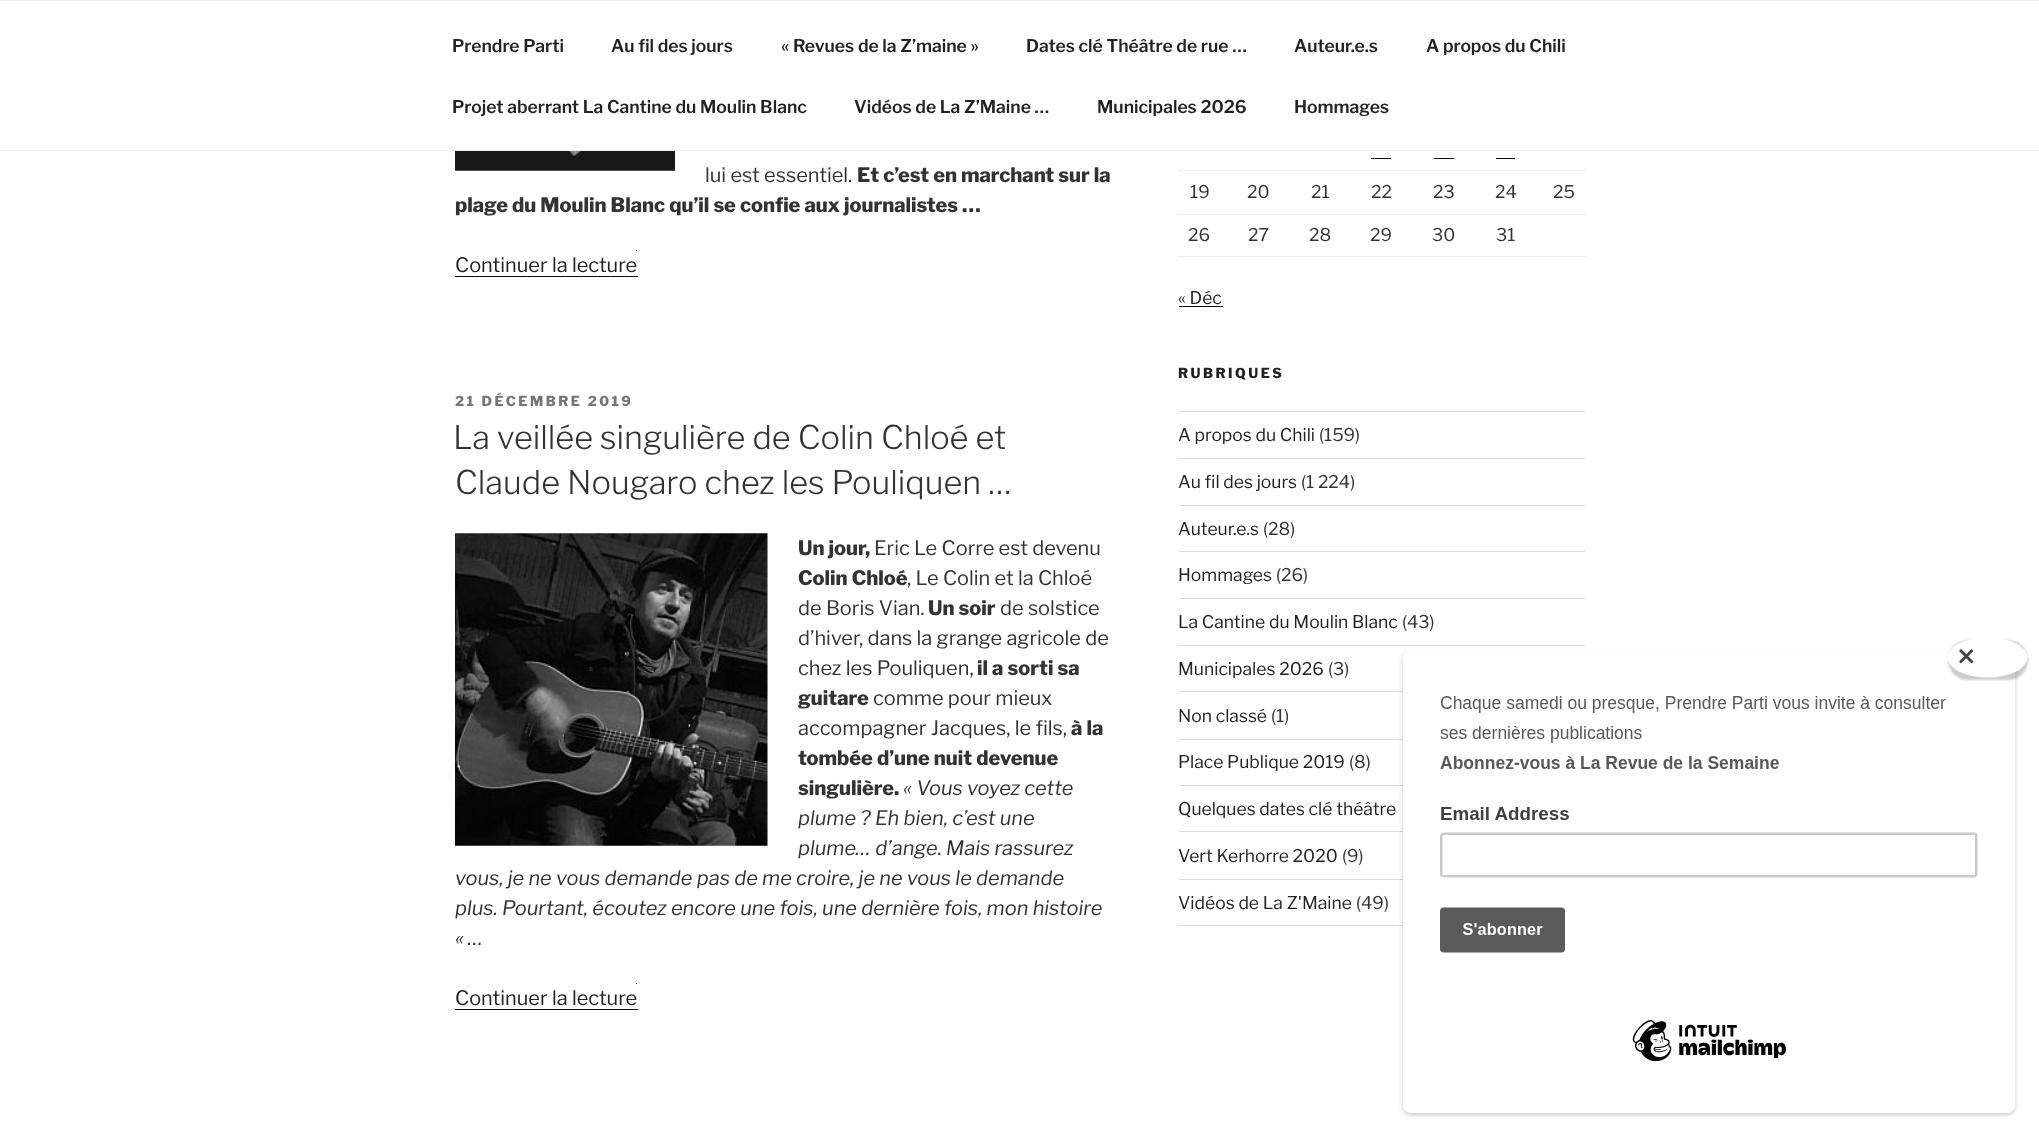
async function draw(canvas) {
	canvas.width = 2039;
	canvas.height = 1137;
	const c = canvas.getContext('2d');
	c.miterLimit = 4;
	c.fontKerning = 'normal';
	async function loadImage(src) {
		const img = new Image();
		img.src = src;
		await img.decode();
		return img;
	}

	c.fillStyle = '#fff';
	c.fillRect(0, 0, 2039, 1137);
	c.fillStyle = '#eee';
	c.fillRect(0, 0, 2039, 1);
	c.fillRect(0, 150, 2039, 1);
	c.font = '600 17.5px Libre Franklin';
	c.fillStyle = '#222';
	for (const [text, x, y] of [
		['Prendre Parti', 452, 52],
		['Au fil des jours', 611, 52],
		['« Revues de la Z’maine »', 781, 52],
		['Dates clé Théâtre de rue …', 1026, 52],
		['Auteur.e.s', 1294, 52],
		['A propos du Chili', 1426, 52],
		['Projet aberrant La Cantine du Moulin Blanc', 452, 113],
		['Vidéos de La Z’Maine …', 854, 113],
		['Municipales 2026', 1097, 113],
		['Hommages', 1294, 113],
	]) {
		c.fillText(text, x, y);
	}
	c.drawImage(await loadImage('img1.png'), 455, 151, 220, 20);
	c.font = '20px Libre Franklin';
	c.fillStyle = '#333';
	c.fillText('lui est essentiel.', 705, 182);
	c.font = '800 20px Libre Franklin';
	c.fillText('Et c’est en marchant sur la', 857, 182);
	c.fillText('plage du Moulin Blanc qu’il se confie aux journalistes …', 455, 212);
	c.font = '20px Libre Franklin';
	c.fillStyle = '#222';
	c.fillText('Continuer la lecture', 455, 272);
	c.fillStyle = '#0f0f0f';
	c.fillRect(455, 276, 183, 1);
	c.fillRect(636, 250, 1, 1);
	c.letterSpacing = '2.5px';
	c.font = '800 13.75px Libre Franklin';
	c.fillStyle = '#767676';
	c.fillText('21 DÉCEMBRE 2019', 455, 406);
	c.letterSpacing = '0px';
	c.font = '300 32.5px Libre Franklin';
	c.fillStyle = '#333';
	c.fillText('La veillée singulière de Colin Chloé et', 453, 449);
	c.fillText('Claude Nougaro chez les Pouliquen …', 455, 494);
	c.drawImage(await loadImage('img2.png'), 455, 533, 313, 313);
	c.font = '800 20px Libre Franklin';
	c.fillText('Un jour,', 798, 555);
	c.font = '20px Libre Franklin';
	c.fillText('Eric Le Corre est devenu', 874, 555);
	c.font = '800 20px Libre Franklin';
	c.fillText('Colin Chloé', 798, 585);
	c.font = '20px Libre Franklin';
	c.fillText(', Le Colin et la Chloé', 907, 585);
	c.fillText('de Boris Vian.', 798, 615);
	c.font = '800 20px Libre Franklin';
	c.fillText('Un soir', 928, 615);
	c.font = '20px Libre Franklin';
	for (const [text, x, y] of [
		['de solstice', 1000, 615],
		['d’hiver, dans la grange agricole de', 798, 645],
		['chez les Pouliquen,', 798, 675],
	]) {
		c.fillText(text, x, y);
	}
	c.font = '800 20px Libre Franklin';
	c.fillText('il a sorti sa', 977, 675);
	c.fillText('guitare', 798, 705);
	c.font = '20px Libre Franklin';
	c.fillText('comme pour mieux', 873, 705);
	c.fillText('accompagner Jacques, le fils,', 798, 735);
	c.font = '800 20px Libre Franklin';
	for (const [text, x, y] of [
		['à la', 1071, 735],
		['tombée d’une nuit devenue', 798, 765],
		['singulière.', 798, 795],
	]) {
		c.fillText(text, x, y);
	}
	c.font = 'italic 20px Libre Franklin';
	for (const [text, x, y] of [
		['« Vous voyez cette', 903, 795],
		['plume ? Eh bien, c’est une', 798, 825],
		['plume… d’ange. Mais rassurez', 798, 855],
		['vous, je ne vous demande pas de me croire, je ne vous le demande', 455, 885],
		['plus. Pourtant, écoutez encore une fois, une dernière fois, mon histoire', 455, 915],
		['« …', 455, 945],
	]) {
		c.fillText(text, x, y);
	}
	c.font = '20px Libre Franklin';
	c.fillStyle = '#222';
	c.fillText('Continuer la lecture', 455, 1005);
	for (const [x, y, w, h, color] of [
		[455, 1009, 183, 1, '#0f0f0f'],
		[636, 983, 1, 1, '#0f0f0f'],
		[1178, 170, 408, 1, '#eee'],
		[1371, 158, 20, 1, '#0f0f0f'],
		[1434, 158, 20, 1, '#0f0f0f'],
		[1496, 158, 19, 1, '#0f0f0f'],
		[1178, 214, 408, 1, '#eee'],
	]) {
		c.fillStyle = color;
		c.fillRect(x, y, w, h);
	}
	c.font = '17.5px Libre Franklin';
	c.fillStyle = '#333';
	for (const [text, x, y] of [
		['19', 1190, 198],
		['20', 1247, 198],
		['21', 1311, 198],
		['22', 1371, 198],
		['23', 1433, 198],
		['24', 1495, 198],
		['25', 1553, 198],
	]) {
		c.fillText(text, x, y);
	}
	c.fillStyle = '#eee';
	c.fillRect(1178, 256, 408, 1);
	c.fillStyle = '#333';
	for (const [text, x, y] of [
		['26', 1188, 241],
		['27', 1248, 241],
		['28', 1309, 241],
		['29', 1370, 241],
		['30', 1432, 241],
		['31', 1496, 241],
	]) {
		c.fillText(text, x, y);
	}
	c.fillStyle = '#222';
	c.fillText('« Déc', 1178, 304);
	c.fillStyle = '#0f0f0f';
	c.fillRect(1179, 306, 44, 1);
	c.letterSpacing = '2.5px';
	c.font = '800 13.75px Libre Franklin';
	c.fillStyle = '#222';
	c.fillText('RUBRIQUES', 1178, 378);
	c.fillStyle = '#ddd';
	c.fillRect(1179, 411, 406, 1);
	c.fillRect(1179, 458, 406, 1);
	c.letterSpacing = '0px';
	c.font = '17.5px Libre Franklin';
	c.fillStyle = '#222';
	c.fillText('A propos du Chili', 1178, 441);
	c.fillStyle = '#333';
	c.fillText('(159)', 1319, 441);
	c.fillStyle = '#ddd';
	c.fillRect(1179, 505, 406, 1);
	c.fillStyle = '#222';
	c.fillText('Au fil des jours', 1178, 488);
	c.fillStyle = '#333';
	c.fillText('(1 224)', 1301, 488);
	c.fillStyle = '#ddd';
	c.fillRect(1179, 551, 406, 1);
	c.fillStyle = '#222';
	c.fillText('Auteur.e.s', 1178, 535);
	c.fillStyle = '#333';
	c.fillText('(28)', 1263, 535);
	c.fillStyle = '#ddd';
	c.fillRect(1179, 598, 406, 1);
	c.fillStyle = '#222';
	c.fillText('Hommages', 1178, 581);
	c.fillStyle = '#333';
	c.fillText('(26)', 1276, 581);
	c.fillStyle = '#ddd';
	c.fillRect(1179, 645, 406, 1);
	c.fillStyle = '#222';
	c.fillText('La Cantine du Moulin Blanc', 1178, 628);
	c.fillStyle = '#333';
	c.fillText('(43)', 1402, 628);
	c.fillStyle = '#ddd';
	c.fillRect(1179, 691, 224, 1);
	c.fillStyle = '#222';
	c.fillText('Municipales 2026', 1178, 675);
	c.fillStyle = '#333';
	c.fillText('(3)', 1328, 675);
	c.fillStyle = '#ddd';
	c.fillRect(1179, 739, 224, 1);
	c.fillStyle = '#222';
	c.fillText('Non classé', 1178, 722);
	c.fillStyle = '#333';
	c.fillText('(1)', 1271, 722);
	c.fillStyle = '#ddd';
	c.fillRect(1179, 785, 224, 1);
	c.fillStyle = '#222';
	c.fillText('Place Publique 2019', 1178, 768);
	c.fillStyle = '#333';
	c.fillText('(8)', 1349, 768);
	c.fillStyle = '#ddd';
	c.fillRect(1179, 831, 224, 1);
	c.fillStyle = '#222';
	c.fillText('Quelques dates clé théâtre', 1178, 815);
	c.fillStyle = '#ddd';
	c.fillRect(1179, 879, 224, 1);
	c.fillStyle = '#222';
	c.fillText('Vert Kerhorre 2020', 1178, 862);
	c.fillStyle = '#333';
	c.fillText('(9)', 1342, 862);
	c.fillStyle = '#ddd';
	c.fillRect(1179, 925, 224, 1);
	c.fillStyle = '#222';
	c.fillText('Vidéos de La Z\'Maine', 1178, 909);
	c.fillStyle = '#333';
	c.fillText('(49)', 1356, 909);
	c.fillStyle = '#00000033';
	c.filter = 'blur(2.5px)';
	c.beginPath();
	c.roundRect(1403, 653, 612, 462, 8);
	c.fill();
	c.filter = 'none';
	c.fillStyle = '#fff';
	c.beginPath();
	c.roundRect(1403, 650, 612, 463, 8);
	c.fill();
	c.fillStyle = '#00000033';
	c.filter = 'blur(1px)';
	c.beginPath();
	c.roundRect(1948, 640, 80, 40, 20);
	c.fill();
	c.filter = 'none';
	c.fillStyle = '#fff';
	c.beginPath();
	c.ellipse(1987.5, 657.5, 40, 20, 0, 0, 2 * Math.PI);
	c.fill();
	c.fillStyle = '#414141';
	c.beginPath();
	c.moveTo(1971.5, 649);
	c.lineTo(1973.5, 651);
	c.lineTo(1961, 663.5);
	c.lineTo(1959, 661.5);
	c.closePath();
	c.fill();
	c.beginPath();
	c.moveTo(1959, 651);
	c.lineTo(1961, 649);
	c.lineTo(1973.5, 661.5);
	c.lineTo(1971.5, 663.5);
	c.closePath();
	c.fill();
	c.drawImage(await loadImage('img3.png'), 1439, 696, 539, 365);
}

draw(document.querySelector('canvas'));
